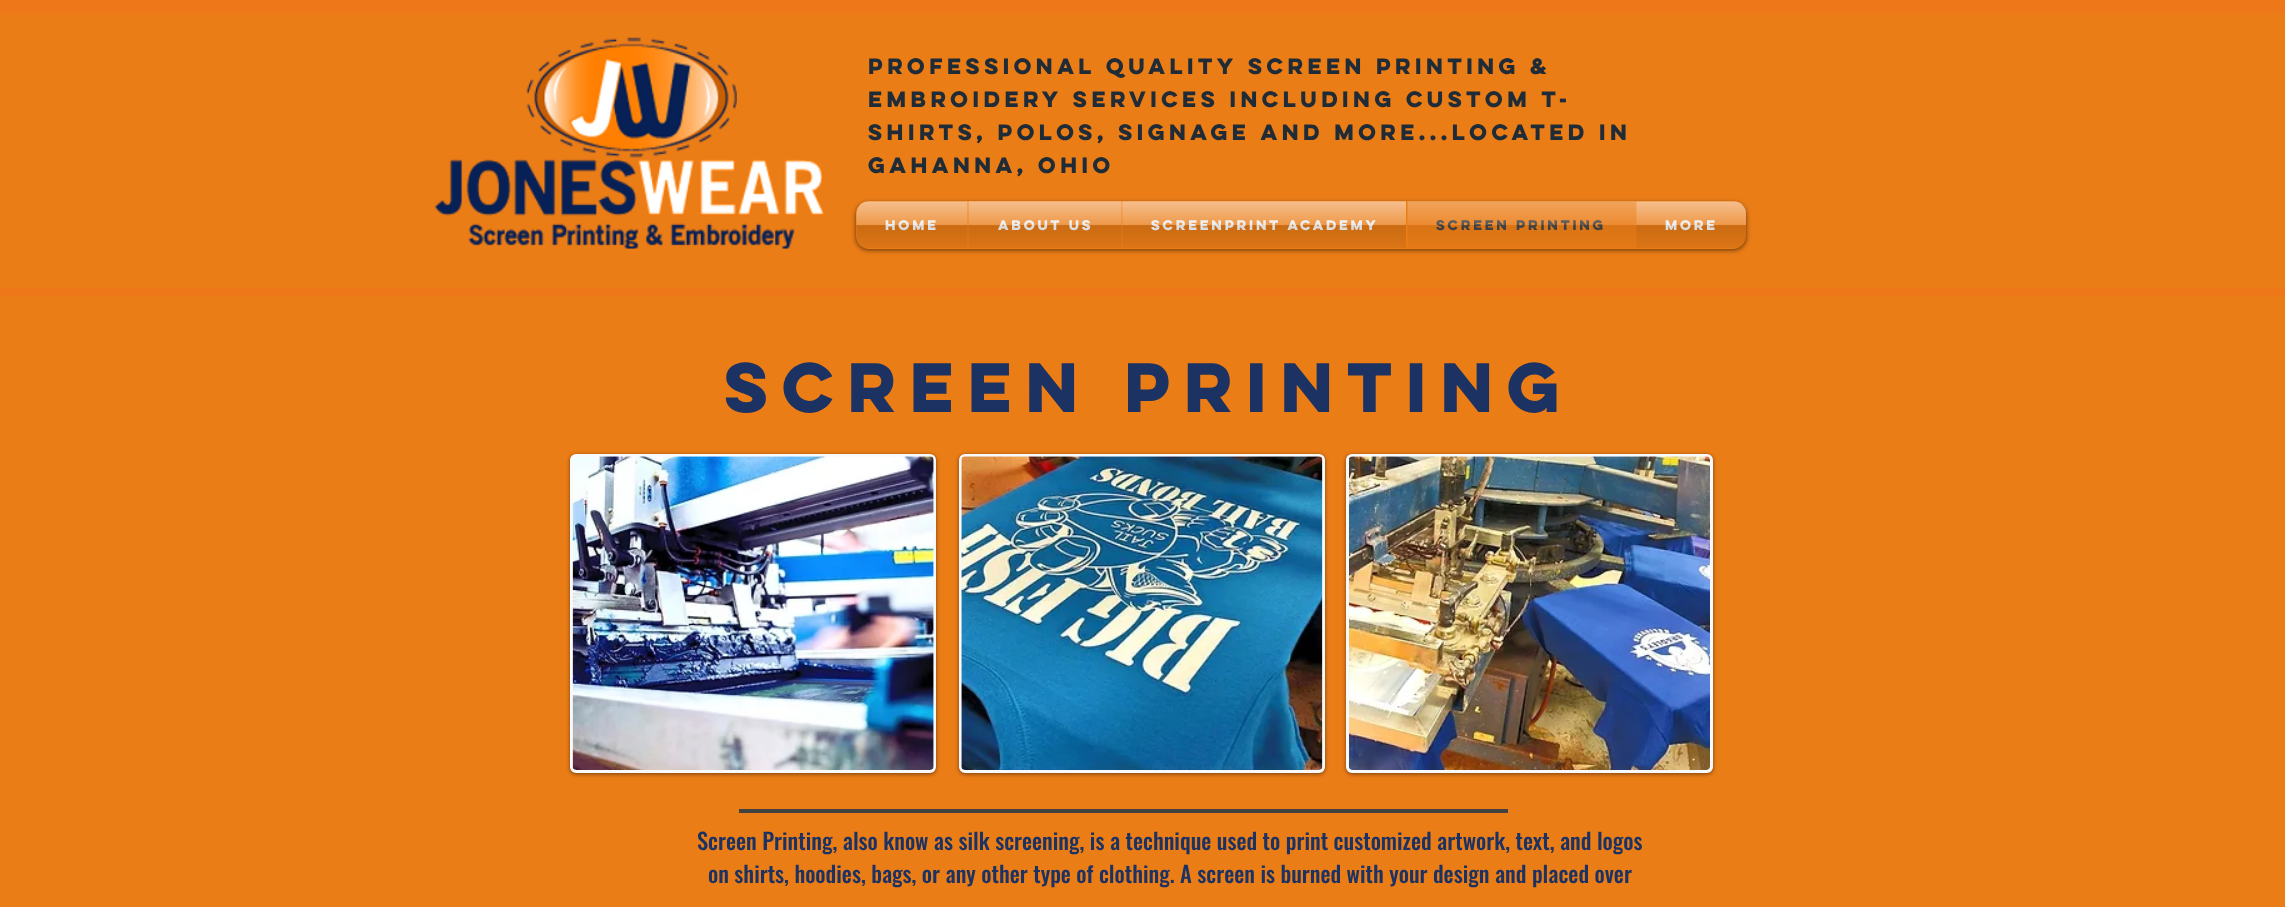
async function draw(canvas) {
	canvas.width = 2285;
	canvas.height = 907;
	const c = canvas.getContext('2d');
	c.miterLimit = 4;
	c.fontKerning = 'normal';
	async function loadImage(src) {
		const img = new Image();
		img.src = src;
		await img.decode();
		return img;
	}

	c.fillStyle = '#eb7d17';
	c.fillRect(0, 0, 2285, 907);
	c.fillStyle = '#ee7819';
	c.fillRect(0, 0, 2285, 13);
	c.fillRect(0, 288, 2285, 8);
	c.drawImage(await loadImage('img1.png'), 434, 37, 391, 212);
	c.font = 'bold 20px "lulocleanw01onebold"';
	c.fillStyle = '#1f2c37';
	for (const [text, x, y] of [
		['Professional quality screen printing &', 868, 74],
		['embroidery services including Custom t-', 868, 107],
		['shirts, Polos, Signage and more...Located in', 868, 140],
		['Gahanna, Ohio', 868, 173],
	]) {
		c.fillText(text, x, y);
	}
	c.save();
	c.beginPath();
	c.moveTo(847, 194);
	c.lineTo(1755, 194);
	c.lineTo(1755, 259);
	c.lineTo(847, 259);
	c.closePath();
	c.moveTo(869, 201);
	c.lineTo(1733, 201);
	c.bezierCurveTo(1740, 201, 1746, 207, 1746, 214);
	c.lineTo(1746, 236);
	c.bezierCurveTo(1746, 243, 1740, 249, 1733, 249);
	c.lineTo(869, 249);
	c.bezierCurveTo(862, 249, 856, 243, 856, 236);
	c.lineTo(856, 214);
	c.bezierCurveTo(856, 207, 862, 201, 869, 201);
	c.closePath();
	c.clip('evenodd');
	c.fillStyle = '#00000099';
	c.filter = 'blur(2.5px)';
	c.beginPath();
	c.roundRect(856, 203, 890, 47, 13);
	c.fill();
	c.filter = 'none';
	c.restore();
	c.drawImage(await loadImage('img2.png'), 856, 201, 890, 47);
	c.font = 'bold 12.5px "lulocleanw01onebold"';
	c.fillStyle = '#ededed';
	c.fillText('Home', 885, 230);
	c.drawImage(await loadImage('img3.png'), 856, 201, 112, 47);
	c.fillText('About Us', 998, 230);
	c.drawImage(await loadImage('img4.png'), 968, 201, 154, 47);
	c.fillText('Screenprint Academy', 1151, 230);
	c.drawImage(await loadImage('img5.png'), 1122, 201, 284, 47);
	c.fillStyle = '#eb7d17';
	c.fillRect(1406, 201, 229, 48);
	c.fillStyle = '#444';
	c.fillText('Screen Printing', 1436, 230);
	c.drawImage(await loadImage('img6.png'), 1407, 201, 228, 47);
	c.fillStyle = '#ededed';
	c.fillText('More', 1665, 230);
	c.drawImage(await loadImage('img7.png'), 1636, 201, 110, 47);
	c.font = 'bold 62.5px "lulocleanw01onebold"';
	c.fillStyle = '#1c3262';
	c.fillText('Screen Printing', 724, 412);
	c.fillStyle = '#00000080';
	c.filter = 'blur(2px)';
	c.beginPath();
	c.roundRect(570, 455, 366, 319, 6);
	c.fill();
	c.filter = 'none';
	c.fillStyle = '#f8f9fb';
	c.beginPath();
	c.roundRect(571.5, 455.5, 363, 316, 4.5);
	c.fill();
	c.strokeStyle = '#f8f9fb';
	c.lineWidth = 3;
	c.stroke();
	c.drawImage(await loadImage('img8.png'), 572, 456, 362, 314);
	c.fillStyle = '#00000080';
	c.filter = 'blur(2px)';
	c.beginPath();
	c.roundRect(959, 455, 366, 319, 6);
	c.fill();
	c.filter = 'none';
	c.fillStyle = '#f8f9fb';
	c.beginPath();
	c.roundRect(960.5, 455.5, 363, 316, 4.5);
	c.fill();
	c.stroke();
	c.drawImage(await loadImage('img9.png'), 961, 456, 362, 314);
	c.fillStyle = '#00000080';
	c.filter = 'blur(2px)';
	c.beginPath();
	c.roundRect(1346, 455, 367, 319, 6);
	c.fill();
	c.filter = 'none';
	c.fillStyle = '#f8f9fb';
	c.beginPath();
	c.roundRect(1347.5, 455.5, 364, 316, 4.5);
	c.fill();
	c.stroke();
	c.drawImage(await loadImage('img10.png'), 1349, 456, 361, 314);
	c.fillStyle = '#424242';
	c.fillRect(739, 809, 769, 4);
	c.font = '500 22.5px Oswald';
	c.fillStyle = '#1c3262';
	c.fillText('Screen Printing, also know as silk screening, is a technique used to print customized artwork, text, and logos', 697, 850);
	c.fillText('on shirts, hoodies, bags, or any other type of clothing. A screen is burned with your design and placed over', 708, 883);
}

draw(document.querySelector('canvas'));
